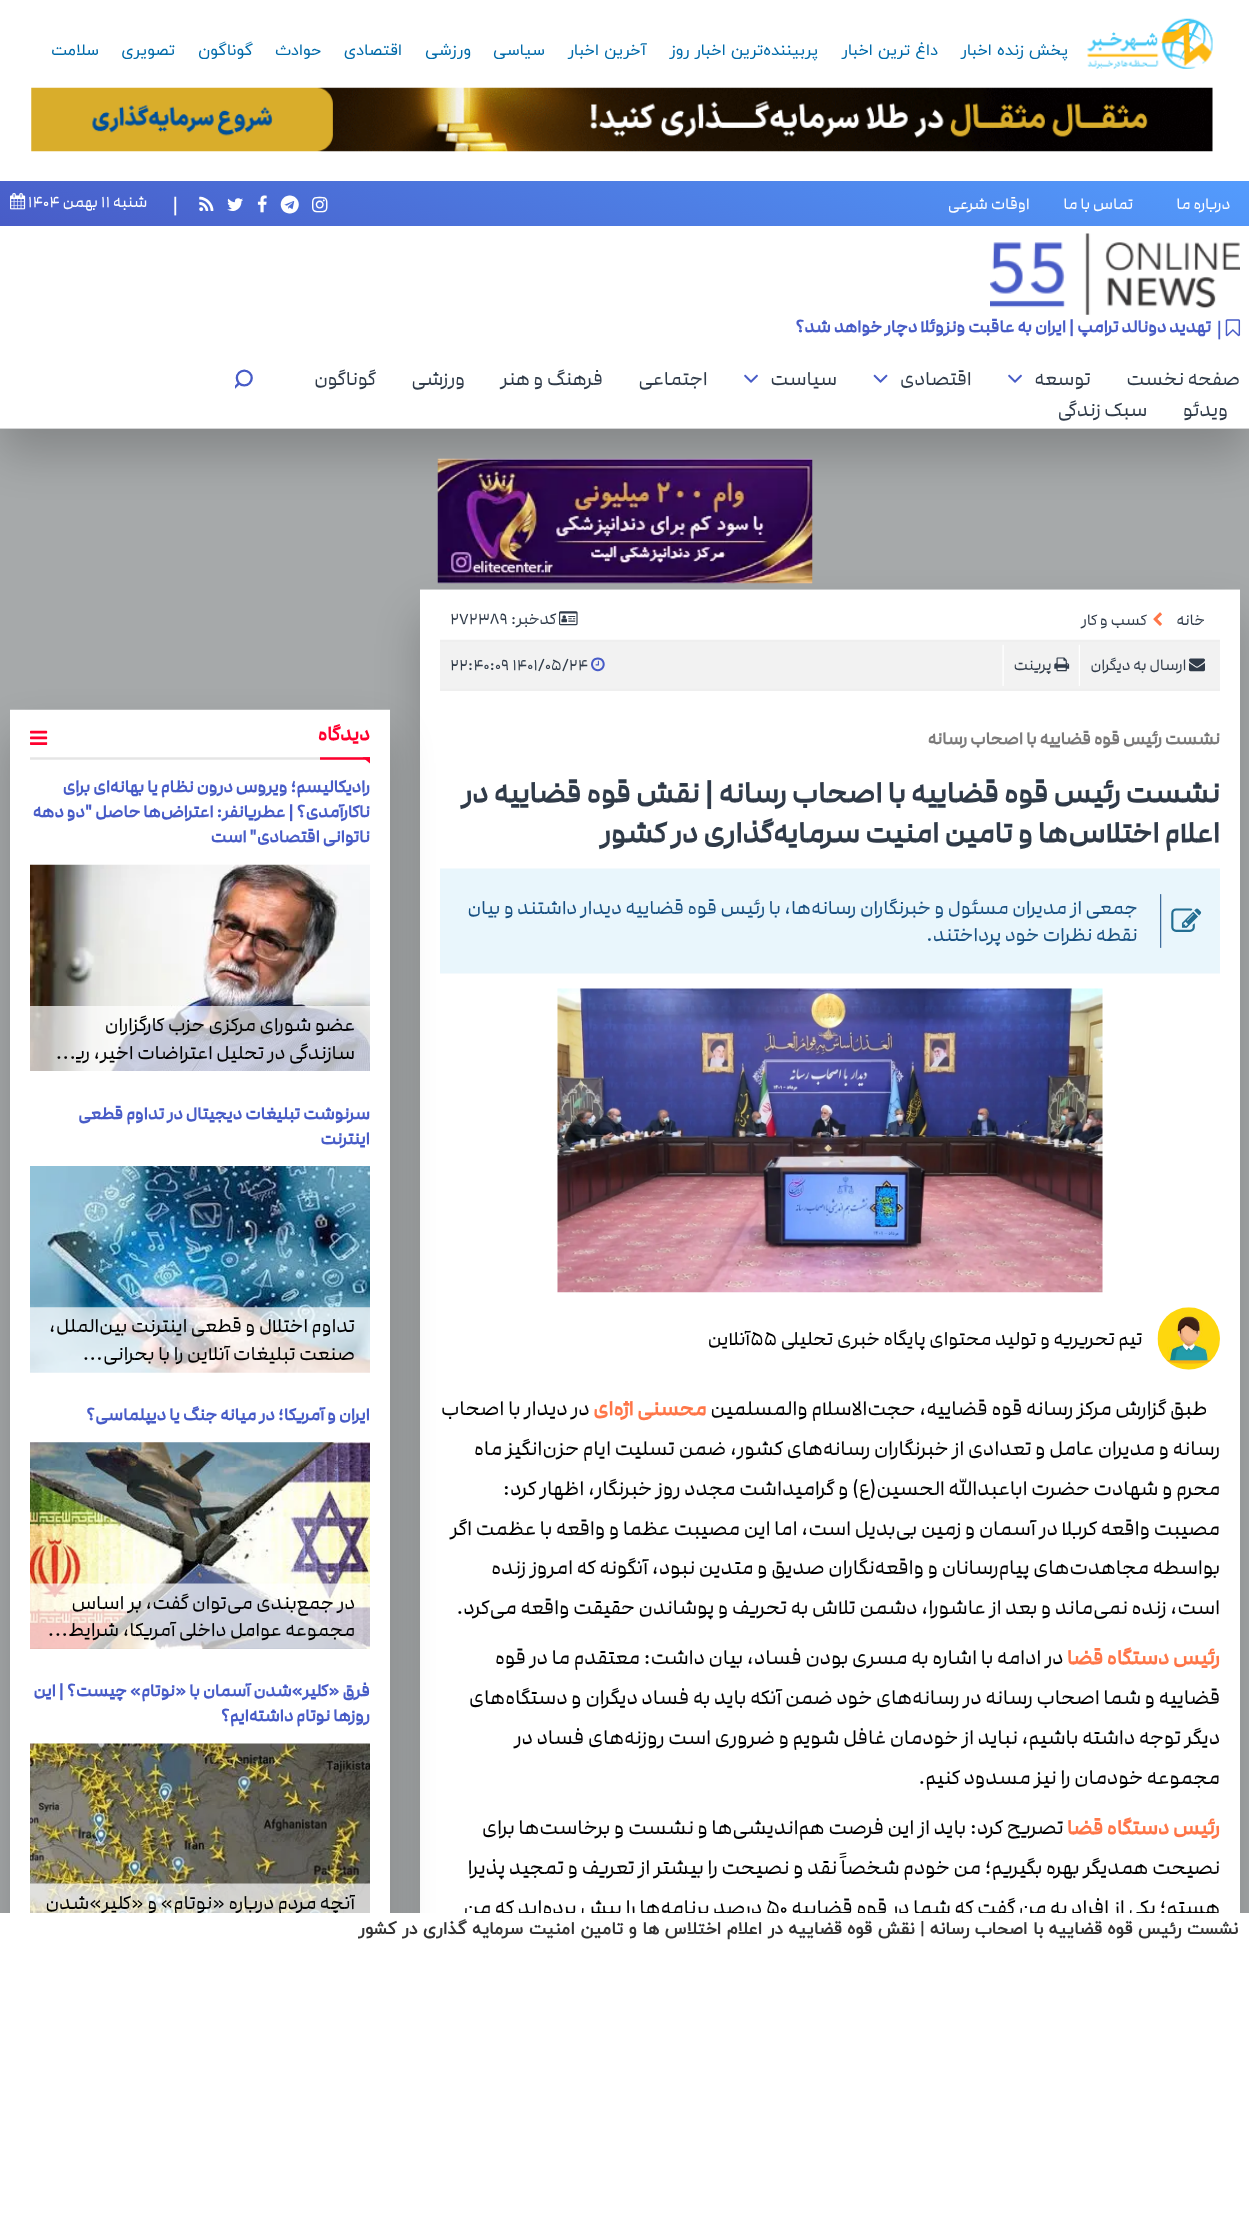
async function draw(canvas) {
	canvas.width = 1249;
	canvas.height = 2219;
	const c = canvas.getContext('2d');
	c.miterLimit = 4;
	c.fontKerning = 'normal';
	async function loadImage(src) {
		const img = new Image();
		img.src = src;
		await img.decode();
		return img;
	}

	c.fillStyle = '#fff';
	c.fillRect(0, 0, 1249, 2219);
	c.drawImage(await loadImage('img1.png'), 1087, 18, 126, 51);
	c.direction = 'rtl';
	c.font = '16.25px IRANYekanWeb';
	c.fillStyle = '#006aa9';
	for (const [text, x, y] of [
		['پخش زنده اخبار', 1068, 55],
		['داغ ترین اخبار', 938, 55],
		['پربیننده‌ترین اخبار روز', 818, 55],
		['آخرین اخبار', 647, 55],
		['سیاسی', 545, 55],
		['ورزشی', 471, 55],
		['اقتصادی', 402, 55],
		['حوادث', 321, 55],
		['گوناگون', 253, 55],
		['تصویری', 175, 55],
		['سلامت', 99, 55],
	]) {
		c.fillText(text, x, y);
	}
	c.drawImage(await loadImage('img2.png'), 31, 87, 1182, 65);
	c.drawImage(await loadImage('img3.png'), 0, 181, 1249, 1732);
	c.font = 'bold 17.5px IRANYekanWeb';
	c.fillStyle = '#333';
	c.fillText('نشست رئیس قوه قضاییه با اصحاب رسانه | نقش قوه قضاییه در اعلام اختلاس ها و تامین امنیت سرمایه گذاری در کشور', 1238, 1934);
}

draw(document.querySelector('canvas'));
